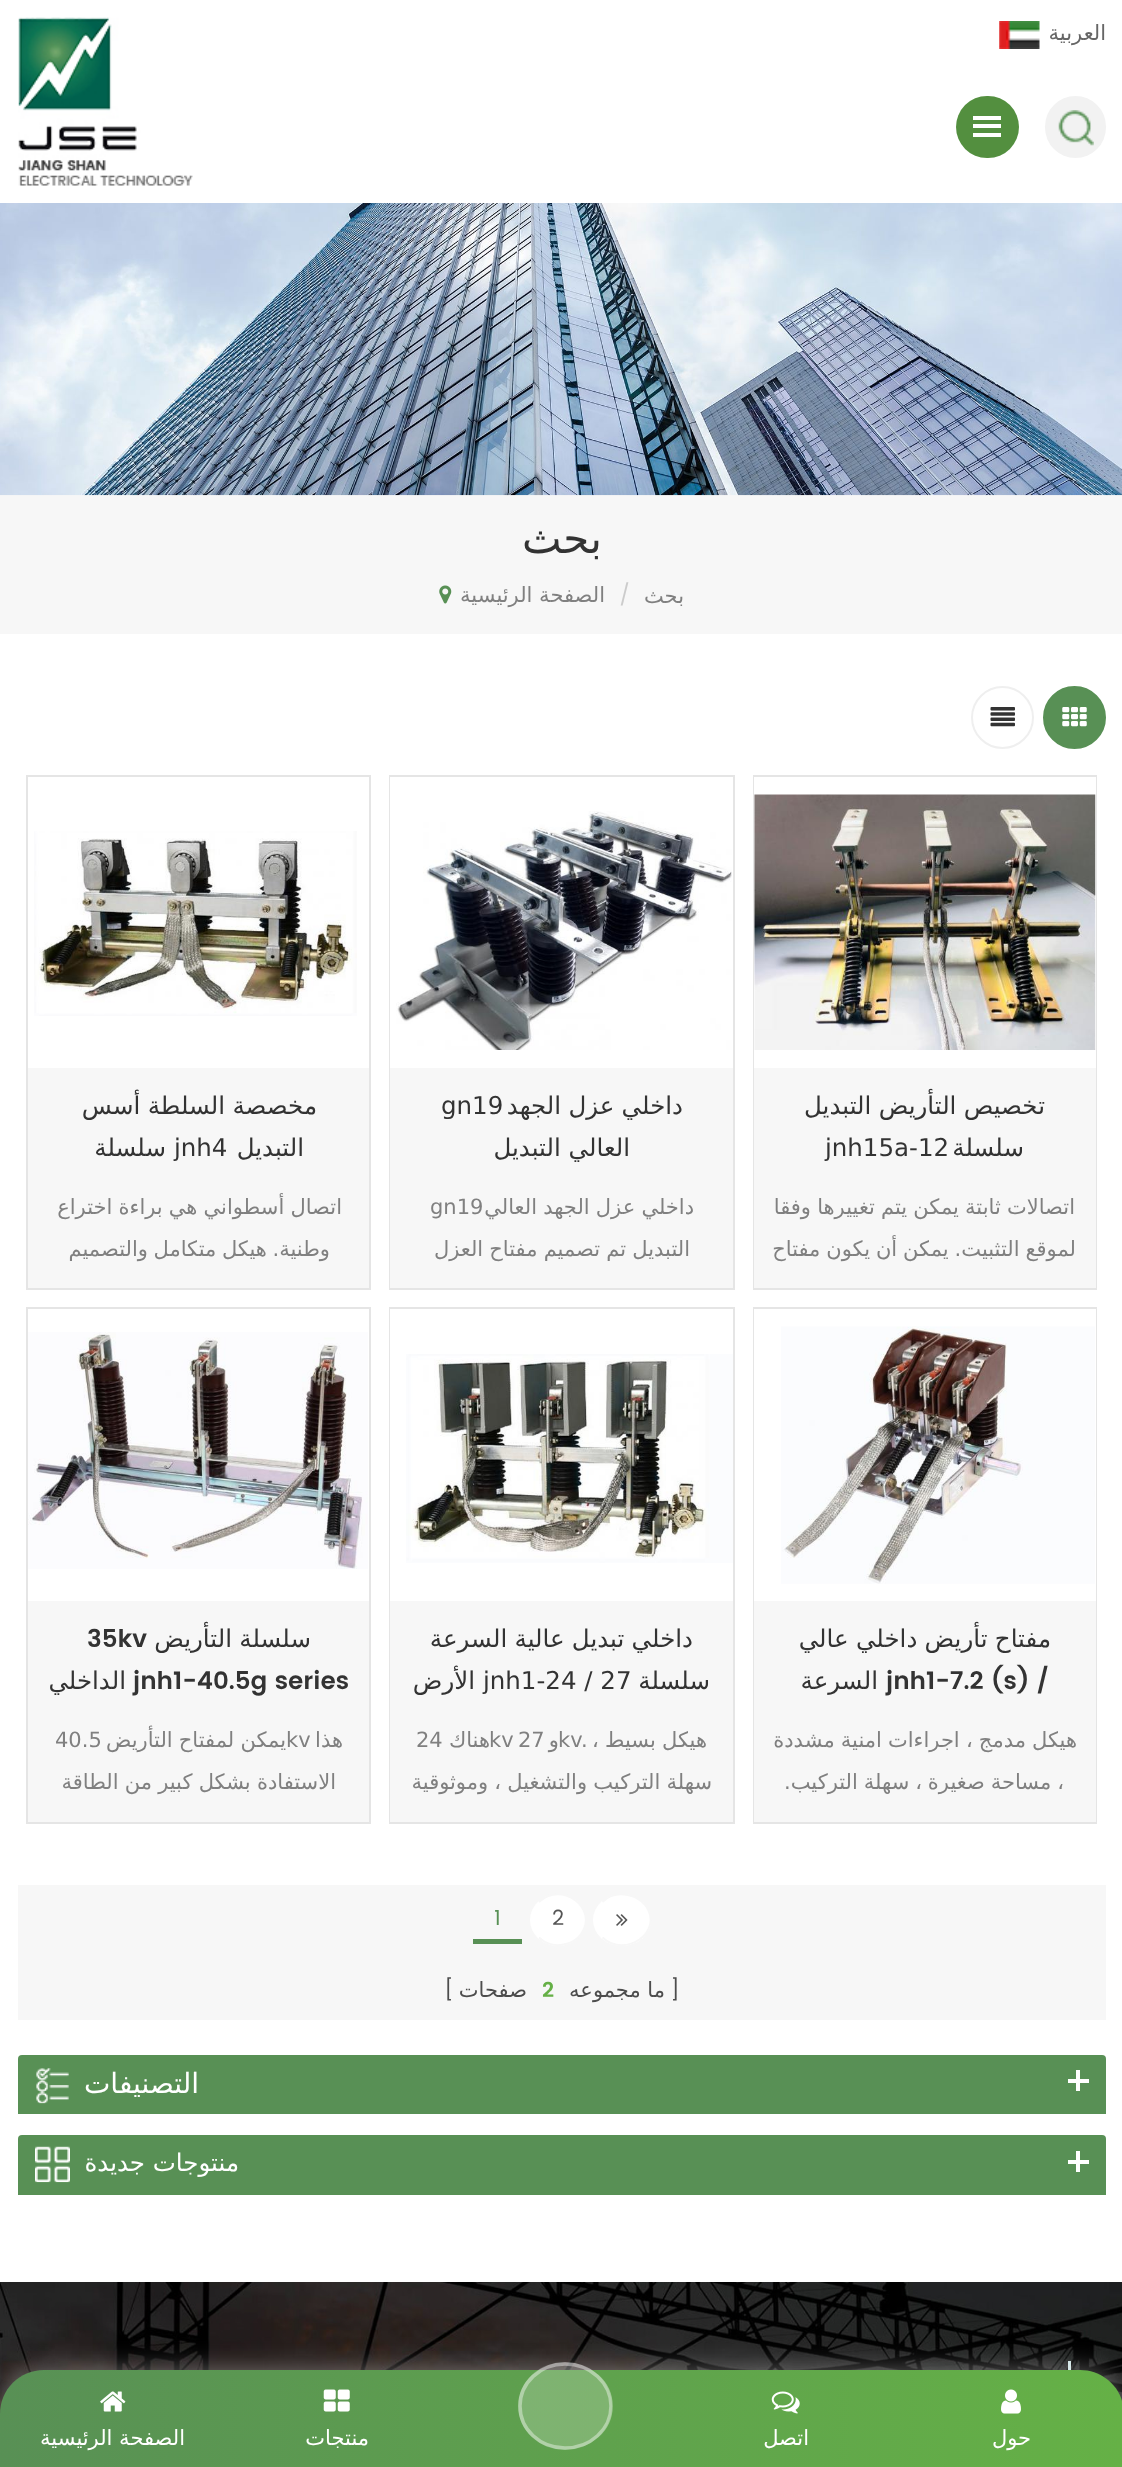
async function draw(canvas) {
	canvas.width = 1122;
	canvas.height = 2467;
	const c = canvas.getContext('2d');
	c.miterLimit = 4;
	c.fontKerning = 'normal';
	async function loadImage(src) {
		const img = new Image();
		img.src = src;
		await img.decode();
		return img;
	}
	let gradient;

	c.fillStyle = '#fff';
	c.fillRect(0, 0, 1122, 2467);
	c.direction = 'rtl';
	c.font = '21px DejaVu Sans';
	c.fillStyle = '#666';
	c.fillText('العربية', 1106, 40);
	c.drawImage(await loadImage('img1.png'), 999, 21, 41, 28);
	c.fillStyle = '#f2f2f2';
	c.beginPath();
	c.roundRect(1045, 96, 61, 62, 30.5);
	c.fill();
	c.drawImage(await loadImage('img2.png'), 1058, 110, 36, 36);
	c.drawImage(await loadImage('img3.png'), 18, 17, 175, 169);
	c.fillStyle = '#538f3f';
	c.beginPath();
	c.roundRect(956, 96, 63, 62, 31);
	c.fill();
	for (const [x, y, w, h, color] of [
		[973, 116, 28, 4, '#fff'],
		[973, 124, 28, 4, '#fff'],
		[973, 133, 28, 4, '#fff'],
		[0, 495, 1122, 139, '#f7f7f7'],
	]) {
		c.fillStyle = color;
		c.fillRect(x, y, w, h);
	}
	c.drawImage(await loadImage('img4.png'), 0, 203, 1122, 293);
	c.font = '42px DejaVu Sans';
	c.fillStyle = '#333';
	c.fillText('بحث', 602, 553);
	c.font = '21px DejaVu Sans';
	c.fillStyle = '#808080';
	c.fillText('بحث', 684, 603);
	c.direction = 'ltr';
	c.font = '21px Poppins';
	c.fillStyle = '#ccc';
	c.fillText('/', 619, 602);
	c.direction = 'rtl';
	c.font = '21px DejaVu Sans';
	c.fillStyle = '#808080';
	c.fillText('الصفحة الرئيسية', 605, 602);
	c.drawImage(await loadImage('img5.png'), 439, 585, 13, 19);
	c.fillStyle = '#589055';
	c.beginPath();
	c.arc(1074.5, 717.5, 30.5, 0, 2 * Math.PI);
	c.fill();
	c.strokeStyle = '#589055';
	c.lineWidth = 2;
	c.stroke();
	c.drawImage(await loadImage('img6.png'), 1062, 707, 25, 20);
	c.beginPath();
	c.arc(1002.5, 717.5, 30.5, 0, 2 * Math.PI);
	c.strokeStyle = '#efefef';
	c.stroke();
	c.drawImage(await loadImage('img7.png'), 990, 707, 25, 20);
	c.strokeStyle = '#e5e5e5';
	c.strokeRect(754, 776, 342, 513);
	c.fillStyle = '#fff';
	c.fillRect(754, 777, 342, 291);
	c.drawImage(await loadImage('img8.png'), 754, 794, 342, 256);
	c.fillStyle = '#f7f7f7';
	c.fillRect(754, 1068, 342, 220);
	c.wordSpacing = '-0.5px';
	c.font = '24.5px DejaVu Sans';
	c.fillStyle = '#333';
	c.fillText('تخصيص التأريض التبديل', 1045, 1114);
	c.wordSpacing = '0px';
	c.fillText('سلسلة', 1024, 1156);
	c.direction = 'ltr';
	c.fillText('jnh15a-12', 825, 1156);
	c.wordSpacing = '-0.5px';
	c.direction = 'rtl';
	c.font = '21px DejaVu Sans';
	c.fillStyle = '#808080';
	c.fillText('اتصالات ثابتة يمكن يتم تغييرها وفقا', 1075, 1214);
	c.save();
	c.beginPath();
	c.rect(772, 1187, 306, 84);
	c.clip();
	c.wordSpacing = '-0.75px';
	c.fillText('لموقع التثبيت. يمكن أن يكون مفتاح', 1076, 1256);
	c.restore();
	c.strokeRect(390, 776, 344, 513);
	c.fillStyle = '#fff';
	c.fillRect(390, 777, 1, 291);
	c.drawImage(await loadImage('img9.png'), 396, 811, 336, 239);
	c.fillStyle = '#f7f7f7';
	c.fillRect(390, 1068, 343, 220);
	c.font = '24.5px DejaVu Sans';
	c.fillStyle = '#333';
	c.fillText('داخلي عزل الجهد', 683, 1114);
	c.wordSpacing = '0px';
	c.direction = 'ltr';
	c.fillText('gn19', 441, 1114);
	c.direction = 'rtl';
	c.fillText('العالي التبديل', 630, 1156);
	c.wordSpacing = '-0.5px';
	c.font = '21px DejaVu Sans';
	c.fillStyle = '#808080';
	c.fillText('داخلي عزل الجهد العالي', 694, 1214);
	c.wordSpacing = '0px';
	c.direction = 'ltr';
	c.fillText('gn19', 430, 1214);
	c.wordSpacing = '-0.5px';
	c.direction = 'rtl';
	c.fillText('التبديل تم تصميم مفتاح العزل', 690, 1256);
	c.strokeRect(27, 776, 343, 513);
	c.drawImage(await loadImage('img10.png'), 34, 831, 323, 185);
	c.fillStyle = '#f7f7f7';
	c.fillRect(28, 1068, 341, 220);
	c.font = '24.5px DejaVu Sans';
	c.fillStyle = '#333';
	c.fillText('مخصصة السلطة أسس', 317, 1114);
	c.wordSpacing = '0px';
	c.fillText('التبديل', 304, 1156);
	c.direction = 'ltr';
	c.fillText('jnh4', 174, 1156);
	c.direction = 'rtl';
	c.fillText('سلسلة', 166, 1156);
	c.wordSpacing = '-0.5px';
	c.font = '21px DejaVu Sans';
	c.fillStyle = '#808080';
	c.fillText('اتصال أسطواني هي براءة اختراع', 342, 1214);
	c.wordSpacing = '-1px';
	c.fillText('وطنية. هيكل متكامل والتصميم', 330, 1256);
	c.strokeRect(754, 1308, 342, 515);
	c.fillStyle = '#fff';
	c.fillRect(754, 1309, 342, 292);
	c.drawImage(await loadImage('img11.png'), 781, 1326, 314, 258);
	c.fillStyle = '#f7f7f7';
	c.fillRect(754, 1601, 342, 221);
	c.wordSpacing = '-0.5px';
	c.font = '24.5px DejaVu Sans';
	c.fillStyle = '#333';
	c.fillText('مفتاح تأريض داخلي عالي', 1051, 1647);
	c.wordSpacing = '0px';
	c.direction = 'ltr';
	c.font = '600 24.5px Poppins';
	c.fillText('jnh1-7.2 (s) /', 886, 1689);
	c.direction = 'rtl';
	c.font = '24.5px DejaVu Sans';
	c.fillText('السرعة', 878, 1689);
	c.wordSpacing = '-0.5px';
	c.font = '21px DejaVu Sans';
	c.fillStyle = '#808080';
	c.fillText('هيكل مدمج ، اجراءات امنية مشددة', 1077, 1747);
	c.wordSpacing = '-0.75px';
	c.fillText('، مساحة صغيرة ، سهلة التركيب.', 1064, 1789);
	c.strokeRect(390, 1308, 344, 515);
	c.fillStyle = '#fff';
	c.fillRect(390, 1309, 1, 292);
	c.drawImage(await loadImage('img12.png'), 406, 1354, 327, 209);
	c.fillStyle = '#f7f7f7';
	c.fillRect(390, 1601, 343, 221);
	c.wordSpacing = '-0.5px';
	c.font = '24.5px DejaVu Sans';
	c.fillStyle = '#333';
	c.fillText('داخلي تبديل عالية السرعة', 693, 1647);
	c.wordSpacing = '0px';
	c.fillText('سلسلة', 710, 1689);
	c.direction = 'ltr';
	c.fillText('jnh1-24 / 27', 483, 1689);
	c.direction = 'rtl';
	c.fillText('الأرض', 475, 1689);
	c.wordSpacing = '-0.5px';
	c.font = '21px DejaVu Sans';
	c.fillStyle = '#808080';
	c.fillText('هيكل بسيط ،', 707, 1747);
	c.wordSpacing = '0px';
	c.direction = 'ltr';
	c.fillText('kv.', 558, 1747);
	c.direction = 'rtl';
	c.fillText('و', 559, 1747);
	c.direction = 'ltr';
	c.fillText('27', 518, 1747);
	c.fillText('kv', 489, 1747);
	c.direction = 'rtl';
	c.fillText('هناك', 490, 1747);
	c.direction = 'ltr';
	c.fillText('24', 416, 1747);
	c.wordSpacing = '-0.5px';
	c.direction = 'rtl';
	c.fillText('سهلة التركيب والتشغيل ، وموثوقية', 712, 1789);
	c.strokeRect(27, 1308, 343, 515);
	c.drawImage(await loadImage('img13.png'), 28, 1332, 340, 237);
	c.fillStyle = '#f7f7f7';
	c.fillRect(28, 1601, 341, 221);
	c.font = '24.5px DejaVu Sans';
	c.fillStyle = '#333';
	c.fillText('سلسلة التأريض', 311, 1647);
	c.wordSpacing = '0px';
	c.direction = 'ltr';
	c.font = '600 24.5px Poppins';
	c.fillText('35kv', 87, 1647);
	c.fillText('jnh1-40.5g series', 133, 1689);
	c.direction = 'rtl';
	c.font = '24.5px DejaVu Sans';
	c.fillText('الداخلي', 126, 1689);
	c.font = '21px DejaVu Sans';
	c.fillStyle = '#808080';
	c.fillText('هذا', 343, 1747);
	c.direction = 'ltr';
	c.fillText('kv', 286, 1747);
	c.wordSpacing = '-0.5px';
	c.direction = 'rtl';
	c.fillText('يمكن لمفتاح التأريض', 286, 1747);
	c.wordSpacing = '0px';
	c.direction = 'ltr';
	c.fillText('40.5', 55, 1747);
	c.wordSpacing = '-0.5px';
	c.direction = 'rtl';
	c.fillText('الاستفادة بشكل كبير من الطاقة', 336, 1789);
	c.fillStyle = '#f7f7f7';
	c.fillRect(18, 1885, 1088, 135);
	c.fillStyle = '#fff';
	c.beginPath();
	c.ellipse(622, 1920, 29, 26, 0, 0, 2 * Math.PI);
	c.fill();
	c.beginPath();
	c.moveTo(602.5, 1902);
	c.bezierCurveTo(609, 1895.5, 618.5, 1893.5, 627.5, 1895);
	c.bezierCurveTo(634.5, 1896, 641, 1900, 645.5, 1905.5);
	c.bezierCurveTo(664.5, 1931.5, 625.5, 1959, 602.5, 1937.5);
	c.strokeStyle = '#f7f7f7';
	c.lineWidth = 1.8;
	c.stroke();
	c.drawImage(await loadImage('img14.png'), 616, 1914, 12, 12);
	c.beginPath();
	c.ellipse(558, 1920, 28, 26, 0, 0, 2 * Math.PI);
	c.fill();
	c.beginPath();
	c.moveTo(539, 1902);
	c.bezierCurveTo(561.5, 1880.5, 599, 1908, 581, 1934);
	c.bezierCurveTo(577, 1939.5, 570.5, 1943.5, 563.5, 1944.5);
	c.bezierCurveTo(555, 1946.5, 545.5, 1944, 539, 1937.5);
	c.stroke();
	c.wordSpacing = '0px';
	c.direction = 'ltr';
	c.font = '21px Poppins';
	c.fillStyle = '#555';
	c.fillText('2', 552, 1925);
	c.fillStyle = '#589055';
	c.fillText('1', 494, 1925);
	c.fillRect(473, 1939, 49, 5);
	c.fillStyle = '#4d4d4d';
	c.fillText(']', 670, 1997);
	c.direction = 'rtl';
	c.font = '21px DejaVu Sans';
	c.fillText('ما مجموعه', 665, 1997);
	c.direction = 'ltr';
	c.font = '600 21px Poppins';
	c.fillStyle = '#65b046';
	c.fillText('2', 542, 1997);
	c.direction = 'rtl';
	c.font = '21px DejaVu Sans';
	c.fillStyle = '#4d4d4d';
	c.fillText('صفحات', 527, 1997);
	c.direction = 'ltr';
	c.font = '21px Poppins';
	c.fillText('[', 444, 1997);
	c.fillStyle = '#589055';
	c.beginPath();
	c.roundRect(18, 2055, 1088, 59, [4, 4, 0, 0]);
	c.fill();
	c.fillStyle = '#fff';
	c.fillRect(1068, 2079, 21, 4);
	c.fillRect(1076, 2070, 4, 21);
	c.direction = 'rtl';
	c.font = '28px DejaVu Sans';
	c.fillText('التصنيفات', 199, 2093);
	c.drawImage(await loadImage('img15.png'), 36, 2068, 33, 36);
	c.fillStyle = '#589055';
	c.beginPath();
	c.roundRect(18, 2135, 1088, 60, [4, 4, 0, 0]);
	c.fill();
	c.fillStyle = '#fff';
	c.fillRect(1068, 2160, 21, 4);
	c.fillRect(1076, 2151, 4, 21);
	c.font = '24.5px DejaVu Sans';
	c.fillText('منتوجات جديدة', 239, 2171);
	c.drawImage(await loadImage('img16.png'), 35, 2146, 35, 37);
	c.drawImage(await loadImage('img17.png'), 0, 2282, 1122, 132);
	c.fillStyle = '#d1e5e5';
	c.fillRect(1068, 2361, 3, 9);
	c.fillStyle = '#ffffff66';
	c.filter = 'blur(13px)';
	c.beginPath();
	c.roundRect(0, 2370, 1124, 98, 44);
	c.fill();
	c.filter = 'none';
	gradient = c.createLinearGradient(0, 2419, 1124, 2419);
	gradient.addColorStop(0, '#589055');
	gradient.addColorStop(1, '#65b146');
	c.fillStyle = gradient;
	c.beginPath();
	c.moveTo(44, 2370);
	c.lineTo(1080, 2370);
	c.bezierCurveTo(1104.5, 2370, 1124, 2389.5, 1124, 2414);
	c.lineTo(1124, 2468);
	c.lineTo(0, 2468);
	c.lineTo(0, 2414);
	c.bezierCurveTo(0, 2389.5, 19.5, 2370, 44, 2370);
	c.closePath();
	c.fill();
	c.fillStyle = '#ffffff33';
	c.beginPath();
	c.ellipse(565, 2406, 47, 44, 0, 0, 2 * Math.PI);
	c.fill();
	c.beginPath();
	c.moveTo(565, 2364);
	c.bezierCurveTo(590.5, 2364, 611, 2383, 611, 2406);
	c.bezierCurveTo(611, 2429.5, 590.5, 2448, 565, 2448);
	c.bezierCurveTo(540, 2448, 520, 2429.5, 520, 2406);
	c.bezierCurveTo(520, 2383, 540, 2364, 565, 2364);
	c.closePath();
	c.strokeStyle = '#ffffff66';
	c.lineWidth = 3.5;
	c.stroke();
	c.drawImage(await loadImage('img18.png'), 1001, 2389, 20, 25);
	c.font = '21px DejaVu Sans';
	c.fillStyle = '#fff';
	c.fillText('حول', 1031, 2445);
	c.drawImage(await loadImage('img19.png'), 771, 2391, 29, 23);
	c.fillText('اتصل', 809, 2445);
	c.drawImage(await loadImage('img20.png'), 323, 2389, 27, 23);
	c.fillText('منتجات', 369, 2445);
	c.drawImage(await loadImage('img21.png'), 100, 2391, 26, 21);
	c.fillText('الصفحة الرئيسية', 185, 2445);
}

draw(document.querySelector('canvas'));
